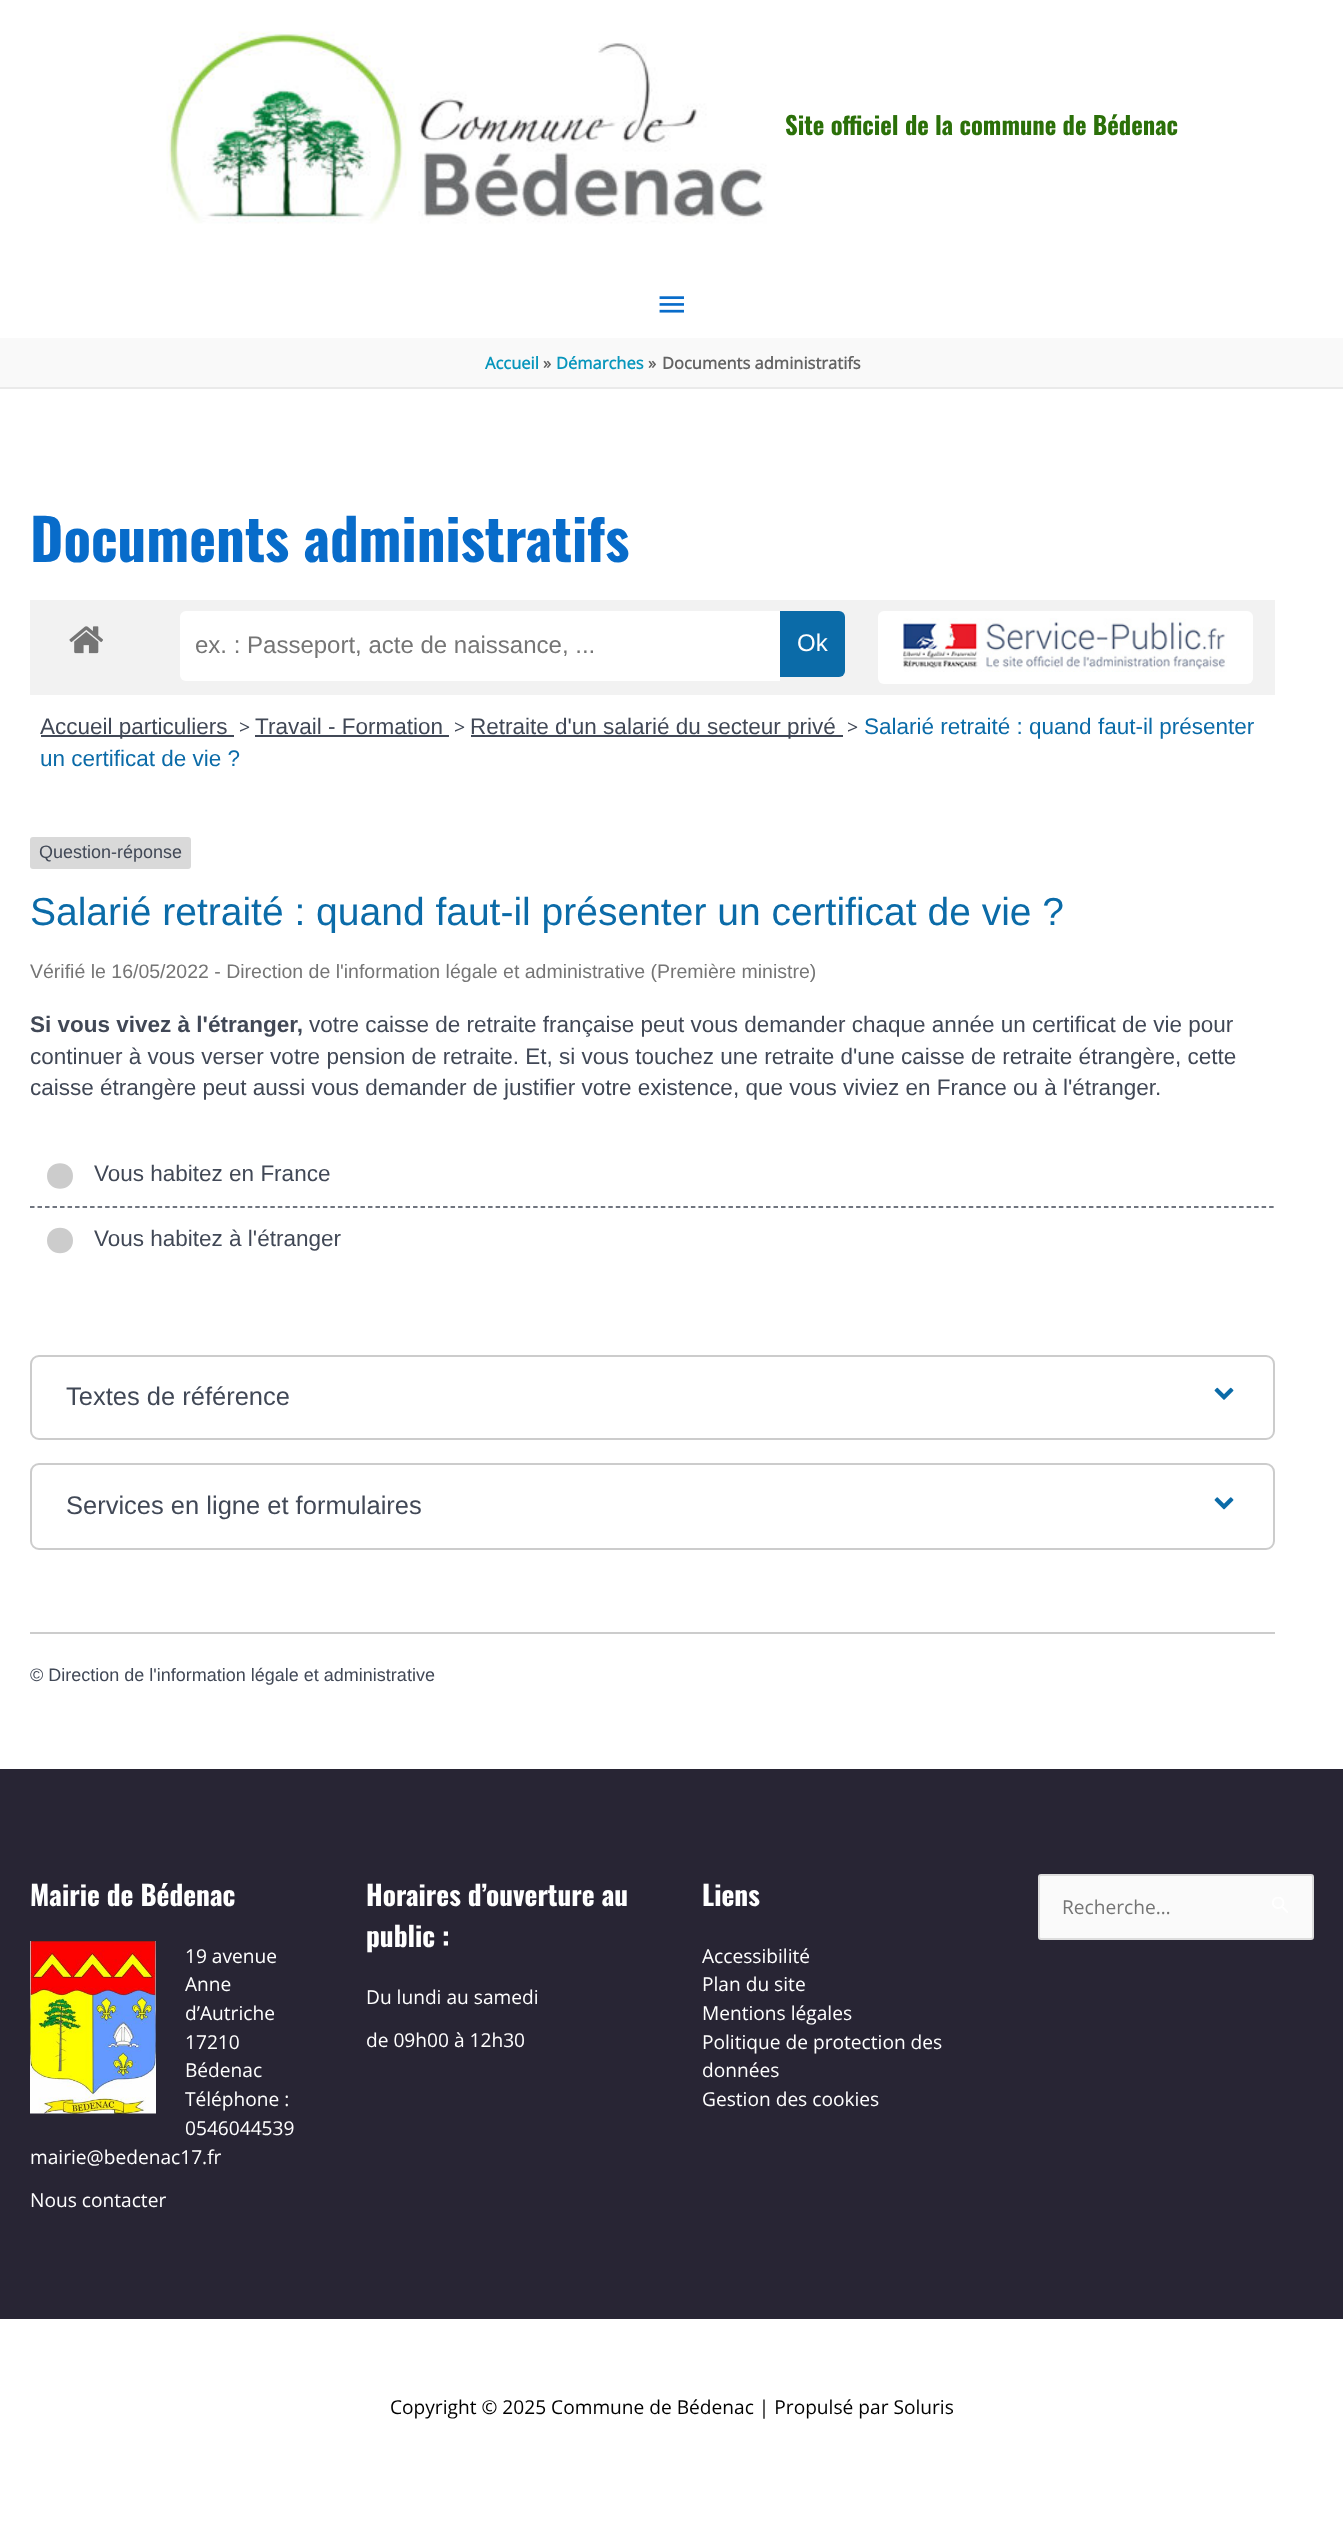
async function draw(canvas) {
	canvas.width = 1343;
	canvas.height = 2530;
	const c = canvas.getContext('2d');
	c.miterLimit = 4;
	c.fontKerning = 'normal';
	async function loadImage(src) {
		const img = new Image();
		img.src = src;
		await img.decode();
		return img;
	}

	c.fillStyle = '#fff';
	c.fillRect(0, 0, 1343, 2530);
	c.drawImage(await loadImage('img1.png'), 166, 31, 601, 193);
	c.font = 'bold 24.6px Oswald';
	c.fillStyle = '#2b7009';
	c.fillText('Site officiel de la commune de Bédenac', 785, 135);
	c.drawImage(await loadImage('img2.png'), 659, 296, 25, 17);
	c.fillStyle = '#f9f9f9';
	c.fillRect(0, 338, 1343, 49);
	c.fillStyle = '#eaeaea';
	c.fillRect(0, 387, 1343, 2);
	c.font = 'bold 16.5px Open Sans';
	c.fillStyle = '#0896bc';
	c.fillText('Accueil', 485, 369);
	c.fillStyle = '#636363';
	c.fillText('»', 543, 369);
	c.fillStyle = '#0896bc';
	c.fillText('Démarches', 556, 369);
	c.fillStyle = '#636363';
	c.fillText('»', 648, 369);
	c.fillText('Documents administratifs', 662, 369);
	c.font = 'bold 57px Oswald';
	c.fillStyle = '#086cca';
	c.fillText('Documents administratifs', 30, 562);
	c.fillStyle = '#f2f2f2';
	c.fillRect(30, 600, 1245, 95);
	c.drawImage(await loadImage('img3.png'), 69, 626, 34, 28);
	c.fillStyle = '#fff';
	c.beginPath();
	c.roundRect(180, 611, 600, 70, [6, 0, 0, 6]);
	c.fill();
	c.font = '24px Liberation Sans';
	c.fillStyle = '#757575';
	c.fillText('ex. : Passeport, acte de naissance, ...', 195, 653);
	c.fillStyle = '#0b6ba8';
	c.beginPath();
	c.roundRect(780, 611, 65, 66, [0, 6, 6, 0]);
	c.fill();
	c.fillStyle = '#fff';
	c.fillText('Ok', 797, 651);
	c.beginPath();
	c.roundRect(878, 611, 375, 73, 6);
	c.fill();
	c.drawImage(await loadImage('img4.png'), 903, 618, 324, 54);
	c.fillStyle = '#414856';
	c.fillRect(41, 735, 193, 2);
	c.font = '22.5px Liberation Sans';
	c.fillText('Accueil particuliers', 40, 734);
	c.font = '19.5px Open Sans';
	c.fillText('>', 239, 734);
	c.font = '22.5px Liberation Sans';
	c.fillText('Travail - Formation', 255, 734);
	c.fillRect(255, 735, 194, 2);
	c.font = '19.5px Open Sans';
	c.fillText('>', 454, 734);
	c.fillRect(471, 735, 372, 2);
	c.font = '22.5px Liberation Sans';
	c.fillText('Retraite d\'un salarié du secteur privé', 470, 734);
	c.font = '19.5px Open Sans';
	c.fillText('>', 847, 734);
	c.font = '22.5px Liberation Sans';
	c.fillStyle = '#0b6ba8';
	c.fillText('Salarié retraité : quand faut-il présenter', 864, 734);
	c.fillText('un certificat de vie ?', 40, 766);
	c.fillStyle = '#d9d9d9';
	c.beginPath();
	c.roundRect(30, 837, 161, 32, 3);
	c.fill();
	c.font = '18px Liberation Sans';
	c.fillStyle = '#414856';
	c.fillText('Question-réponse', 39, 858);
	c.font = '39px Liberation Sans';
	c.fillStyle = '#0b6ba8';
	c.fillText('Salarié retraité : quand faut-il présenter un certificat de vie ?', 30, 925);
	c.font = '19.5px Liberation Sans';
	c.fillStyle = '#757575';
	c.fillText('Vérifié le 16/05/2022 - Direction de l\'information légale et administrative (Première ministre)', 30, 978);
	c.font = 'bold 22.5px Liberation Sans';
	c.fillStyle = '#414856';
	c.fillText('Si vous vivez à l\'étranger,', 30, 1032);
	c.font = '22.5px Liberation Sans';
	for (const [text, x, y] of [
		['votre caisse de retraite française peut vous demander chaque année un certificat de vie pour', 309, 1032],
		['continuer à vous verser votre pension de retraite. Et, si vous touchez une retraite d\'une caisse de retraite étrangère, cette', 30, 1064],
		['caisse étrangère peut aussi vous demander de justifier votre existence, que vous viviez en France ou à l\'étranger.', 30, 1095],
	]) {
		c.fillText(text, x, y);
	}
	c.fillStyle = '#ccc';
	c.beginPath();
	c.moveTo(73, 1176);
	c.bezierCurveTo(73, 1193, 47, 1193, 47, 1176);
	c.bezierCurveTo(47, 1159, 73, 1159, 73, 1176);
	c.closePath();
	c.fill();
	c.fillStyle = '#414856';
	c.fillText('Vous habitez en France', 94, 1181);
	c.beginPath();
	c.moveTo(30, 1207);
	c.lineTo(1275, 1207);
	c.strokeStyle = '#414856';
	c.lineWidth = 1.5;
	c.setLineDash([4.5, 3.01]);
	c.stroke();
	c.fillStyle = '#ccc';
	c.beginPath();
	c.moveTo(73, 1240.5);
	c.bezierCurveTo(73, 1257.5, 47, 1257.5, 47, 1240.5);
	c.bezierCurveTo(47, 1223.5, 73, 1223.5, 73, 1240.5);
	c.closePath();
	c.fill();
	c.fillStyle = '#414856';
	c.fillText('Vous habitez à l\'étranger', 94, 1246);
	c.beginPath();
	c.roundRect(31, 1356, 1243, 83, 8);
	c.strokeStyle = '#ccc';
	c.lineWidth = 2;
	c.setLineDash([]);
	c.stroke();
	c.font = '25.5px Liberation Sans';
	c.fillText('Textes de référence', 66, 1405);
	c.drawImage(await loadImage('img5.png'), 1214, 1387, 20, 13);
	c.beginPath();
	c.roundRect(31, 1464, 1243, 85, 8);
	c.stroke();
	c.fillText('Services en ligne et formulaires', 66, 1514);
	c.drawImage(await loadImage('img6.png'), 1214, 1497, 20, 13);
	c.fillStyle = '#ccc';
	c.fillRect(30, 1632, 1245, 2);
	c.font = '18px Liberation Sans';
	c.fillStyle = '#414856';
	c.fillText('© Direction de l\'information légale et administrative', 30, 1681);
	c.fillStyle = '#282534';
	c.fillRect(0, 1769, 1343, 550);
	c.font = 'bold 27.4px Oswald';
	c.fillStyle = '#fff';
	c.fillText('Mairie de Bédenac', 30, 1906);
	c.drawImage(await loadImage('img7.png'), 30, 1941, 126, 173);
	c.font = '19.15px Open Sans';
	for (const [text, x, y] of [
		['19 avenue', 185, 1963],
		['Anne', 185, 1991],
		['d’Autriche', 185, 2020],
		['17210', 185, 2049],
		['Bédenac', 185, 2077],
		['Téléphone :', 185, 2106],
		['0546044539', 185, 2135],
		['mairie@bedenac17.fr', 30, 2164],
		['Nous contacter', 30, 2207],
	]) {
		c.fillText(text, x, y);
	}
	c.font = 'bold 27.4px Oswald';
	c.fillText('Horaires d’ouverture au', 366, 1906);
	c.fillText('public :', 366, 1947);
	c.font = '19.15px Open Sans';
	c.fillText('Du lundi au samedi', 366, 2004);
	c.fillText('de 09h00 à 12h30', 366, 2047);
	c.font = 'bold 27.4px Oswald';
	c.fillText('Liens', 702, 1906);
	c.font = '19.15px Open Sans';
	for (const [text, x, y] of [
		['Accessibilité', 702, 1963],
		['Plan du site', 702, 1991],
		['Mentions légales', 702, 2020],
		['Politique de protection des', 702, 2049],
		['données', 702, 2077],
		['Gestion des cookies', 702, 2106],
	]) {
		c.fillText(text, x, y);
	}
	c.fillStyle = '#fafafa';
	c.beginPath();
	c.roundRect(1039, 1875, 274, 64, 2);
	c.fill();
	c.strokeStyle = '#ddd';
	c.stroke();
	c.fillStyle = '#757575';
	c.fillText('Recherche…', 1062, 1914);
	c.drawImage(await loadImage('img8.png'), 1272, 1897, 16, 16);
	c.fillStyle = '#000';
	c.fillText('Copyright © 2025 Commune de Bédenac | Propulsé par Soluris', 390, 2414);
}

draw(document.querySelector('canvas'));
